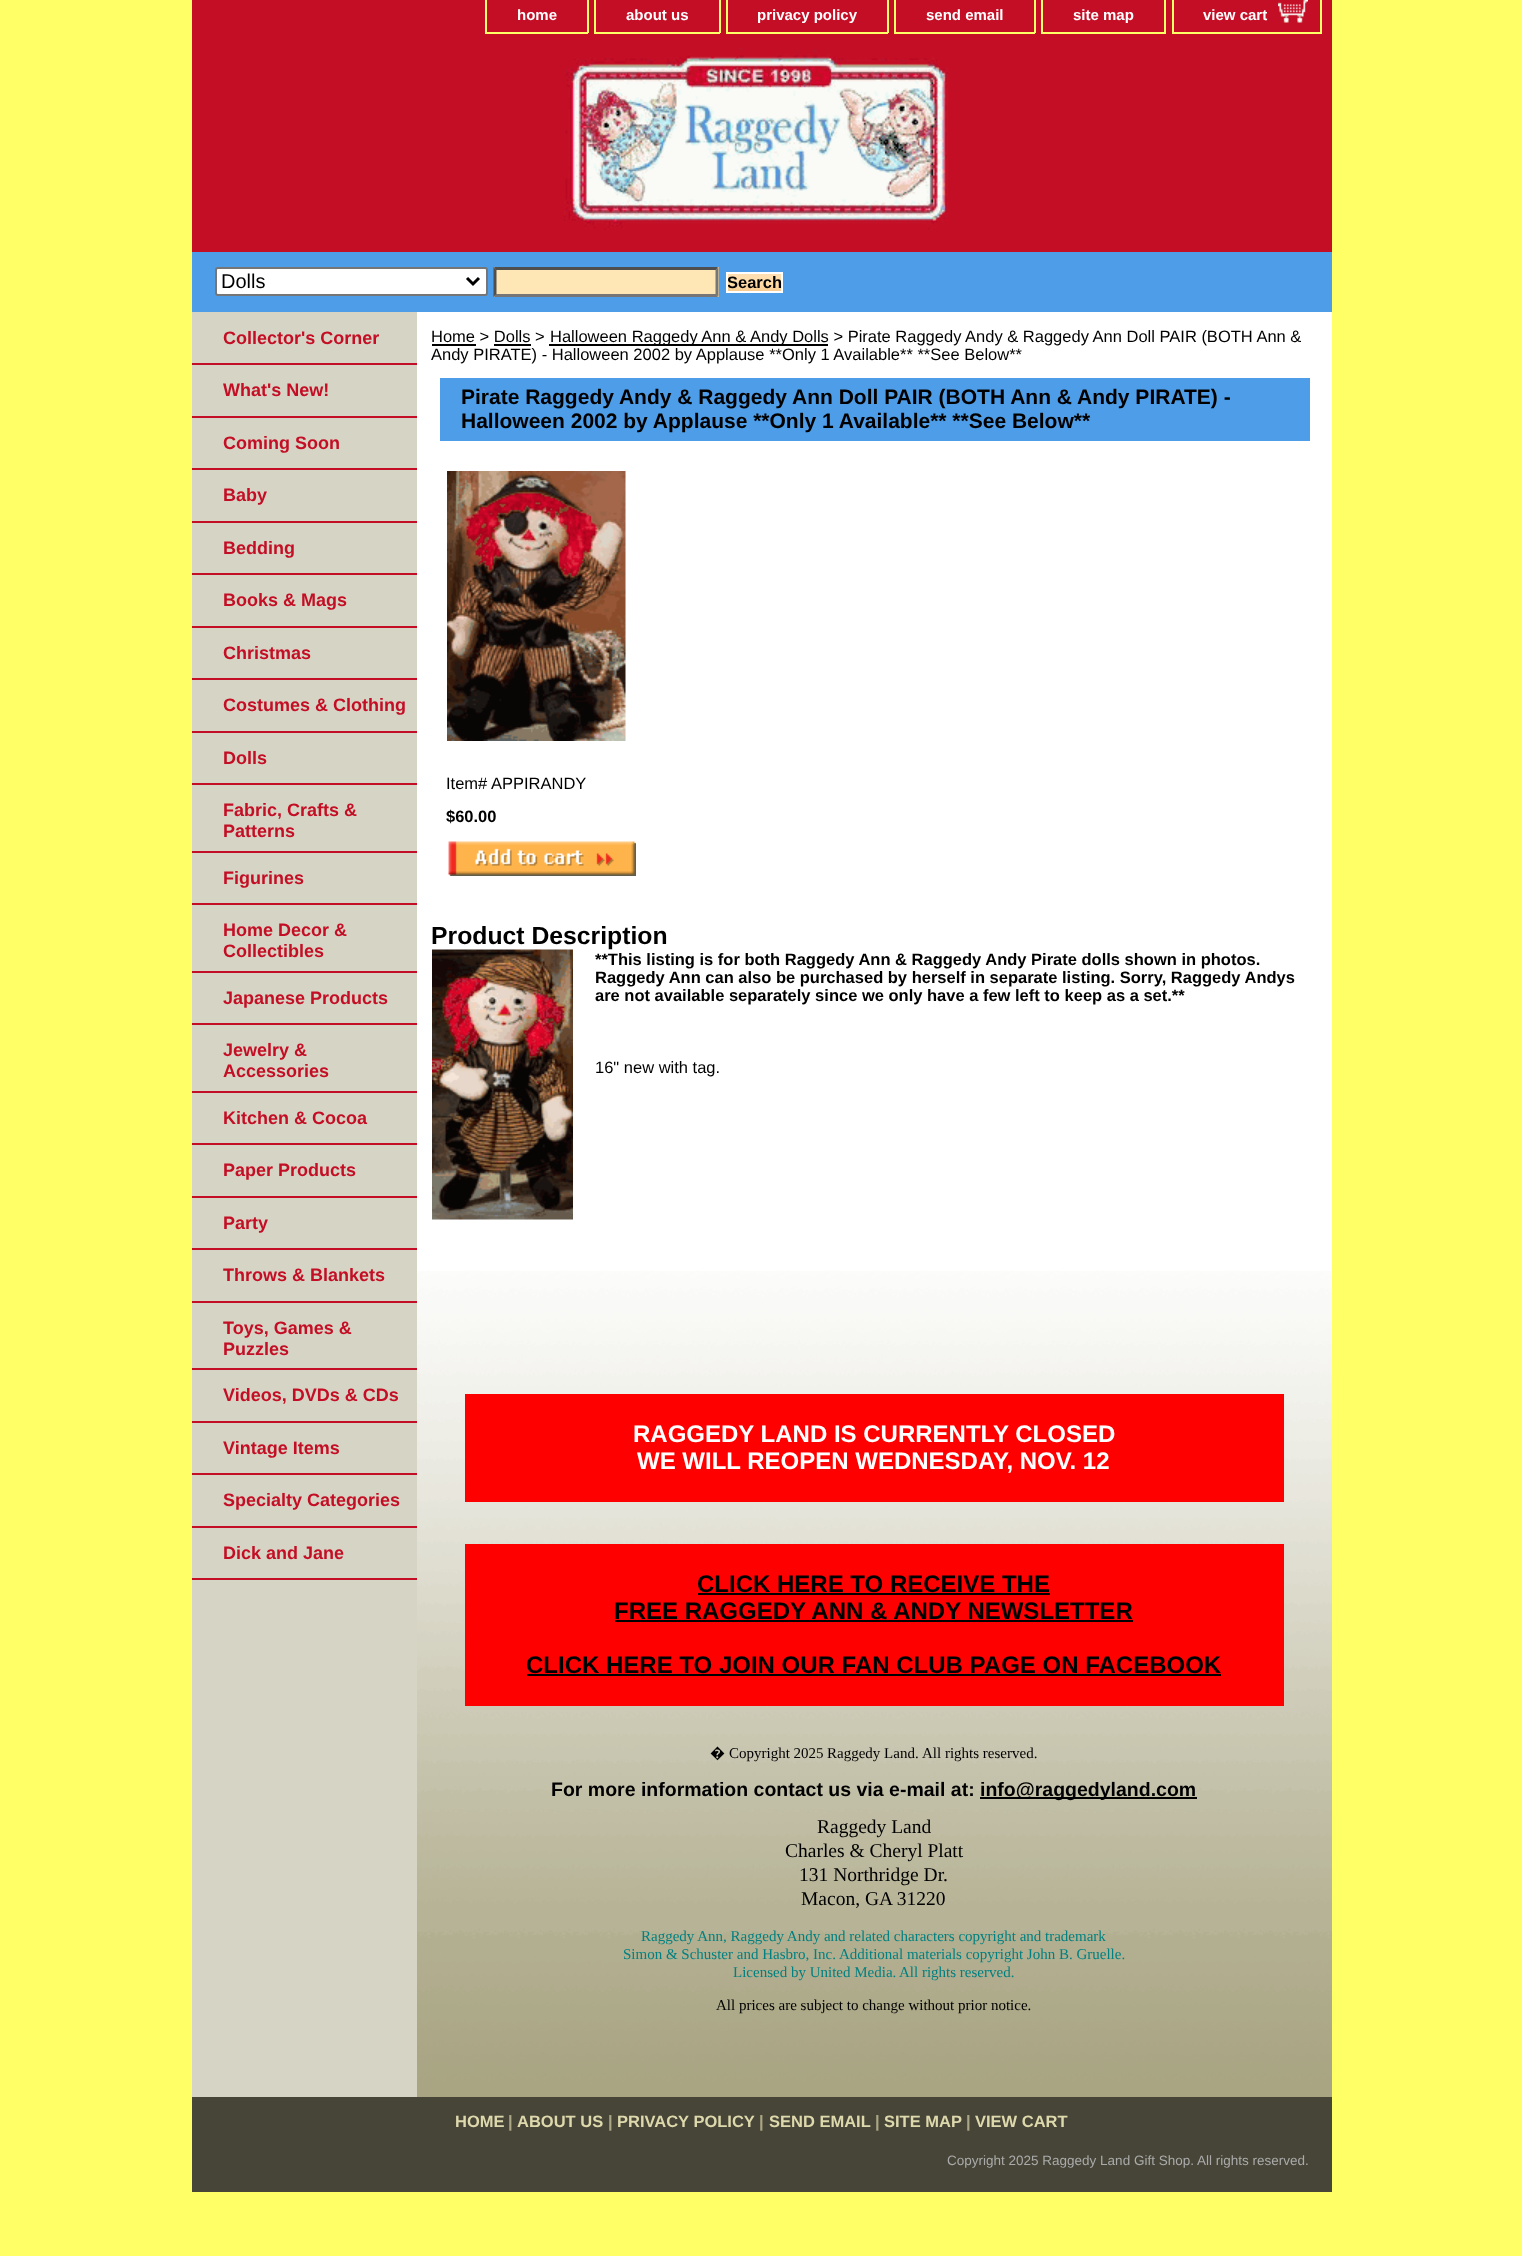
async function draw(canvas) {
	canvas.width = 1522;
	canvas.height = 2256;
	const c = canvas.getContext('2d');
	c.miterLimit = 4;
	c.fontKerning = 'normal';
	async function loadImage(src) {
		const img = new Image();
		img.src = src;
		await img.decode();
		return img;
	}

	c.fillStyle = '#ff6';
	c.fillRect(0, 0, 1522, 2256);
	for (const [x, y, w, h, color] of [
		[192, 0, 1140, 252, '#c40e25'],
		[587, 0, 2, 33, '#ff6'],
		[485, 32, 103, 2, '#ff6'],
		[485, 0, 2, 33, '#ff6'],
	]) {
		c.fillStyle = color;
		c.fillRect(x, y, w, h);
	}
	c.font = 'bold 15px Liberation Sans';
	c.fillStyle = '#fff';
	c.fillText('home', 517, 20);
	for (const [x, y, w, h, color] of [
		[719, 0, 2, 33, '#ff6'],
		[594, 32, 126, 2, '#ff6'],
		[594, 0, 2, 33, '#ff6'],
	]) {
		c.fillStyle = color;
		c.fillRect(x, y, w, h);
	}
	c.fillStyle = '#fff';
	c.fillText('about us', 626, 20);
	for (const [x, y, w, h, color] of [
		[887, 0, 2, 33, '#ff6'],
		[726, 32, 162, 2, '#ff6'],
		[726, 0, 2, 33, '#ff6'],
	]) {
		c.fillStyle = color;
		c.fillRect(x, y, w, h);
	}
	c.fillStyle = '#fff';
	c.fillText('privacy policy', 757, 20);
	for (const [x, y, w, h, color] of [
		[1034, 0, 2, 33, '#ff6'],
		[894, 32, 141, 2, '#ff6'],
		[894, 0, 2, 33, '#ff6'],
	]) {
		c.fillStyle = color;
		c.fillRect(x, y, w, h);
	}
	c.fillStyle = '#fff';
	c.fillText('send email', 926, 20);
	for (const [x, y, w, h, color] of [
		[1164, 0, 2, 33, '#ff6'],
		[1041, 32, 125, 2, '#ff6'],
		[1041, 0, 2, 33, '#ff6'],
	]) {
		c.fillStyle = color;
		c.fillRect(x, y, w, h);
	}
	c.fillStyle = '#fff';
	c.fillText('site map', 1073, 20);
	for (const [x, y, w, h, color] of [
		[1320, 0, 2, 33, '#ff6'],
		[1172, 32, 150, 2, '#ff6'],
		[1172, 0, 2, 33, '#ff6'],
	]) {
		c.fillStyle = color;
		c.fillRect(x, y, w, h);
	}
	c.drawImage(await loadImage('img1.png'), 1278, 0, 30, 23);
	c.fillStyle = '#fff';
	c.fillText('view cart', 1203, 20);
	c.drawImage(await loadImage('img2.png'), 564, 48, 384, 182);
	c.fillStyle = '#4e9de8';
	c.fillRect(192, 252, 1140, 60);
	c.fillStyle = '#fff';
	c.beginPath();
	c.roundRect(216, 268, 271, 27, 2);
	c.fill();
	c.strokeStyle = '#767676';
	c.lineWidth = 2;
	c.stroke();
	c.beginPath();
	c.moveTo(467, 278);
	c.lineTo(473, 284);
	c.lineTo(479, 278);
	c.strokeStyle = '#000';
	c.lineWidth = 3;
	c.stroke();
	c.font = '20px Liberation Sans';
	c.fillStyle = '#000';
	c.fillText('Dolls', 221, 288);
	c.fillStyle = '#ffe7b5';
	c.fillRect(494, 267, 225, 30);
	c.fillStyle = '#4f4f4f';
	c.beginPath();
	c.moveTo(494, 267);
	c.lineTo(718, 267);
	c.lineTo(716, 270);
	c.lineTo(496, 270);
	c.closePath();
	c.fill();
	c.fillStyle = '#767676';
	c.beginPath();
	c.moveTo(718.5, 267);
	c.lineTo(718.5, 297);
	c.lineTo(715.5, 294);
	c.lineTo(715.5, 270);
	c.closePath();
	c.fill();
	c.beginPath();
	c.moveTo(718, 297);
	c.lineTo(494, 297);
	c.lineTo(496, 294);
	c.lineTo(716, 294);
	c.closePath();
	c.fill();
	c.fillStyle = '#4f4f4f';
	c.beginPath();
	c.moveTo(493.5, 297);
	c.lineTo(493.5, 267);
	c.lineTo(496.5, 270);
	c.lineTo(496.5, 294);
	c.closePath();
	c.fill();
	c.drawImage(await loadImage('img3.png'), 728, 274, 53, 17);
	c.strokeStyle = '#fff';
	c.lineWidth = 2;
	c.strokeRect(727, 273, 55, 19);
	c.save();
	c.beginPath();
	c.rect(728, 273, 54, 18);
	c.clip();
	c.font = 'bold 16.5px Liberation Sans';
	c.fillStyle = '#000';
	c.fillText('Search', 727, 288);
	c.restore();
	c.fillStyle = '#fff';
	c.fillRect(417, 312, 915, 959);
	c.drawImage(await loadImage('img4.png'), 417, 1271, 915, 826);
	c.fillStyle = '#d6d5c5';
	c.fillRect(192, 312, 225, 1785);
	c.fillStyle = '#c40e25';
	c.fillRect(192, 363, 225, 2);
	c.font = 'bold 18px Liberation Sans';
	c.fillText('Collector\'s Corner', 223, 344);
	c.fillRect(192, 416, 225, 2);
	c.fillText('What\'s New!', 223, 396);
	c.fillRect(192, 468, 225, 2);
	c.fillText('Coming Soon', 223, 449);
	c.fillRect(192, 521, 225, 2);
	c.fillText('Baby', 223, 501);
	c.fillRect(192, 573, 225, 2);
	c.fillText('Bedding', 223, 554);
	c.fillRect(192, 626, 225, 2);
	c.fillText('Books & Mags', 223, 606);
	c.fillRect(192, 678, 225, 2);
	c.fillText('Christmas', 223, 659);
	c.fillRect(192, 731, 225, 2);
	c.fillText('Costumes & Clothing', 223, 711);
	c.fillRect(192, 783, 225, 2);
	c.fillText('Dolls', 223, 764);
	c.fillRect(192, 851, 225, 2);
	c.fillText('Fabric, Crafts &', 223, 816);
	c.fillText('Patterns', 223, 837);
	c.fillRect(192, 903, 225, 2);
	c.fillText('Figurines', 223, 884);
	c.fillRect(192, 971, 225, 2);
	c.fillText('Home Decor &', 223, 936);
	c.fillText('Collectibles', 223, 957);
	c.fillRect(192, 1023, 225, 2);
	c.fillText('Japanese Products', 223, 1004);
	c.fillRect(192, 1091, 225, 2);
	c.fillText('Jewelry &', 223, 1056);
	c.fillText('Accessories', 223, 1077);
	c.fillRect(192, 1143, 225, 2);
	c.fillText('Kitchen & Cocoa', 223, 1124);
	c.fillRect(192, 1196, 225, 2);
	c.fillText('Paper Products', 223, 1176);
	c.fillRect(192, 1248, 225, 2);
	c.fillText('Party', 223, 1229);
	c.fillRect(192, 1301, 225, 2);
	c.fillText('Throws & Blankets', 223, 1281);
	c.fillRect(192, 1368, 225, 2);
	c.fillText('Toys, Games &', 223, 1334);
	c.fillText('Puzzles', 223, 1355);
	c.fillRect(192, 1421, 225, 2);
	c.fillText('Videos, DVDs & CDs', 223, 1401);
	c.fillRect(192, 1473, 225, 2);
	c.fillText('Vintage Items', 223, 1454);
	c.fillRect(192, 1526, 225, 2);
	c.fillText('Specialty Categories', 223, 1506);
	c.fillRect(192, 1578, 225, 2);
	c.fillText('Dick and Jane', 223, 1559);
	c.font = '16.5px Liberation Sans';
	c.fillStyle = '#000';
	c.fillText('Home > Dolls >', 431, 342);
	c.fillRect(432, 344, 44, 2);
	c.fillRect(549, 344, 279, 2);
	c.fillText('Halloween Raggedy Ann & Andy Dolls > Pirate Raggedy Andy & Raggedy Ann Doll PAIR (BOTH Ann &', 550, 342);
	c.fillRect(494, 344, 37, 2);
	c.fillText('Andy PIRATE) - Halloween 2002 by Applause **Only 1 Available** **See Below**', 431, 360);
	c.fillStyle = '#4e9de8';
	c.fillRect(440, 378, 870, 63);
	c.font = 'bold 21px Liberation Sans';
	c.fillStyle = '#000';
	c.fillText('Pirate Raggedy Andy & Raggedy Ann Doll PAIR (BOTH Ann & Andy PIRATE) -', 461, 404);
	c.fillText('Halloween 2002 by Applause **Only 1 Available** **See Below**', 461, 428);
	c.drawImage(await loadImage('img5.png'), 447, 471, 179, 270);
	c.font = '16.5px Liberation Sans';
	c.fillText('Item#', 446, 789);
	c.fillText('APPIRANDY', 491, 789);
	c.font = 'bold 16.5px Liberation Sans';
	c.fillText('$60.00', 446, 822);
	c.drawImage(await loadImage('img6.png'), 448, 841, 188, 35);
	c.drawImage(await loadImage('img7.png'), 432, 949, 141, 271);
	c.font = 'bold 24.75px Liberation Sans';
	c.fillText('Product Description', 431, 944);
	c.font = 'bold 16.5px Liberation Sans';
	for (const [text, x, y] of [
		['**This listing is for both Raggedy Ann & Raggedy Andy Pirate dolls shown in photos.', 595, 965],
		['Raggedy Ann can also be purchased by herself in separate listing. Sorry, Raggedy Andys', 595, 983],
		['are not available separately since we only have a few left to keep as a set.**', 595, 1001],
	]) {
		c.fillText(text, x, y);
	}
	c.font = '16.5px Liberation Sans';
	c.fillText('16" new with tag.', 595, 1073);
	c.fillStyle = '#f00';
	c.fillRect(465, 1394, 819, 108);
	c.font = 'bold 24px Liberation Sans';
	c.fillStyle = '#fff';
	c.fillText('RAGGEDY LAND IS CURRENTLY CLOSED', 633, 1442);
	c.fillText('WE WILL REOPEN WEDNESDAY, NOV. 12', 637, 1469);
	c.fillStyle = '#f00';
	c.fillRect(465, 1544, 819, 162);
	c.fillStyle = '#000';
	c.fillText('CLICK HERE TO RECEIVE THE', 697, 1592);
	c.fillRect(698, 1593, 352, 2);
	c.fillText('FREE RAGGEDY ANN & ANDY NEWSLETTER', 614, 1619);
	c.fillRect(615, 1620, 518, 2);
	c.fillText('CLICK HERE TO JOIN OUR FAN CLUB PAGE ON FACEBOOK', 526, 1673);
	c.fillRect(527, 1674, 694, 2);
	c.font = '15px Noto Sans';
	c.fillText('�', 710, 1758);
	c.font = '15px Liberation Serif';
	for (const [text, x, y] of [
		['Copyright 2025', 729, 1758],
		['Raggedy Land.', 827, 1758],
		['All rights reserved.', 922, 1758],
	]) {
		c.fillText(text, x, y);
	}
	c.font = 'bold 19.5px Liberation Sans';
	c.fillText('For more information contact us via e-mail at:', 551, 1796);
	c.fillRect(980, 1797, 217, 2);
	c.fillText('info@raggedyland.com', 980, 1796);
	c.font = '19.5px Liberation Serif';
	for (const [text, x, y] of [
		['Raggedy Land', 817, 1833],
		['Charles & Cheryl Platt', 785, 1857],
		['131 Northridge Dr.', 799, 1881],
		['Macon, GA 31220', 801, 1905],
	]) {
		c.fillText(text, x, y);
	}
	c.font = '15px Liberation Serif';
	c.fillStyle = '#008080';
	for (const [text, x, y] of [
		['Raggedy Ann, Raggedy Andy and related characters copyright and trademark', 641, 1941],
		['Simon & Schuster and Hasbro, Inc.', 623, 1959],
		['Additional materials copyright John B. Gruelle.', 839, 1959],
		['Licensed by United Media.', 733, 1977],
		['All rights reserved.', 899, 1977],
	]) {
		c.fillText(text, x, y);
	}
	c.fillStyle = '#000';
	c.fillText('All prices are subject to change without prior notice.', 716, 2010);
	c.fillStyle = '#474537';
	c.fillRect(192, 2097, 1140, 95);
	c.font = 'bold 16.5px Liberation Sans';
	c.fillStyle = '#ded9ad';
	c.fillText('HOME', 455, 2127);
	c.fillStyle = '#aba786';
	c.fillText('|', 508, 2127);
	c.fillStyle = '#ded9ad';
	c.fillText('ABOUT US', 517, 2127);
	c.fillStyle = '#aba786';
	c.fillText('|', 608, 2127);
	c.fillStyle = '#ded9ad';
	c.fillText('PRIVACY POLICY', 617, 2127);
	c.fillStyle = '#aba786';
	c.fillText('|', 759, 2127);
	c.fillStyle = '#ded9ad';
	c.fillText('SEND EMAIL', 769, 2127);
	c.fillStyle = '#aba786';
	c.fillText('|', 875, 2127);
	c.fillStyle = '#ded9ad';
	c.fillText('SITE MAP', 884, 2127);
	c.fillStyle = '#aba786';
	c.fillText('|', 966, 2127);
	c.fillStyle = '#ded9ad';
	c.fillText('VIEW CART', 975, 2127);
	c.font = '13.5px Liberation Sans';
	c.fillStyle = '#aaa';
	c.fillText('Copyright 2025 Raggedy Land Gift Shop. All rights reserved.', 947, 2165);
}

draw(document.querySelector('canvas'));
